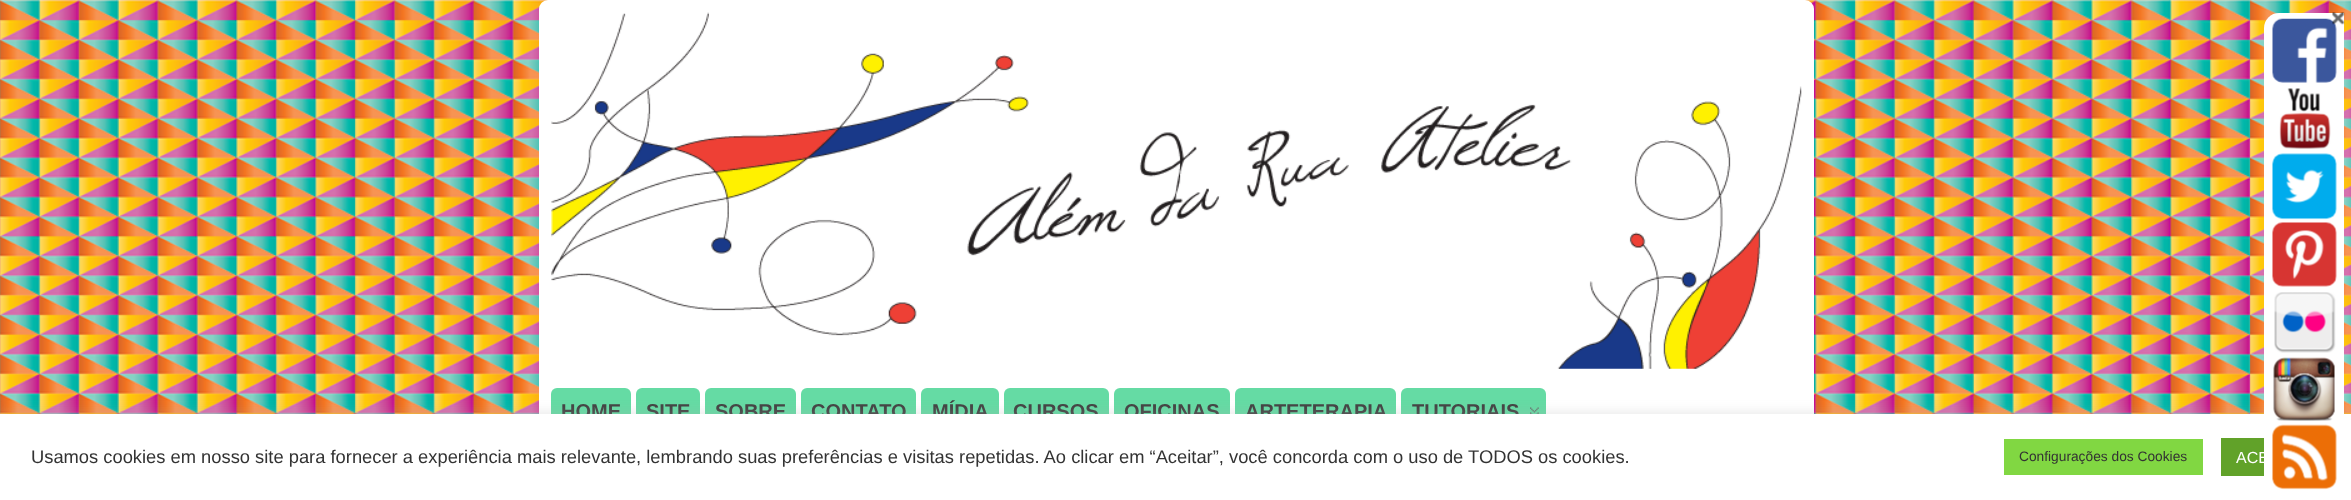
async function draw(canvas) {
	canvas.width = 2351;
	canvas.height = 500;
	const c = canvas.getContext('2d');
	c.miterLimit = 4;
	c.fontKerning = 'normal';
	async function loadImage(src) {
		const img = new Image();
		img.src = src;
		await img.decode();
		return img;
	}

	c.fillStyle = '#fff';
	c.fillRect(0, 0, 2351, 500);
	c.drawImage(await loadImage('img1.png'), 0, 0, 2351, 414);
	c.beginPath();
	c.roundRect(539, 0, 1275, 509, 9);
	c.fill();
	c.drawImage(await loadImage('img2.png'), 551, 12, 1251, 357);
	c.fillStyle = '#65dba4';
	c.beginPath();
	c.roundRect(551, 388, 80, 43, [6, 6, 0, 0]);
	c.fill();
	c.font = 'bold 20px Liberation Sans';
	c.fillStyle = '#424242';
	c.fillText('HOME', 561, 418);
	c.fillStyle = '#65dba4';
	c.beginPath();
	c.roundRect(636, 388, 64, 43, [6, 6, 0, 0]);
	c.fill();
	c.fillStyle = '#424242';
	c.fillText('SITE', 646, 418);
	c.fillStyle = '#65dba4';
	c.beginPath();
	c.roundRect(705, 388, 91, 43, [6, 6, 0, 0]);
	c.fill();
	c.fillStyle = '#424242';
	c.fillText('SOBRE', 715, 418);
	c.fillStyle = '#65dba4';
	c.beginPath();
	c.roundRect(801, 388, 115, 43, [6, 6, 0, 0]);
	c.fill();
	c.fillStyle = '#424242';
	c.fillText('CONTATO', 811, 418);
	c.fillStyle = '#65dba4';
	c.beginPath();
	c.roundRect(921, 388, 78, 43, [6, 6, 0, 0]);
	c.fill();
	c.fillStyle = '#424242';
	c.fillText('MÍDIA', 932, 418);
	c.fillStyle = '#65dba4';
	c.beginPath();
	c.roundRect(1004, 388, 105, 43, [6, 6, 0, 0]);
	c.fill();
	c.fillStyle = '#424242';
	c.fillText('CURSOS', 1013, 418);
	c.fillStyle = '#65dba4';
	c.beginPath();
	c.roundRect(1114, 388, 116, 43, [6, 6, 0, 0]);
	c.fill();
	c.fillStyle = '#424242';
	c.fillText('OFICINAS', 1124, 418);
	c.fillStyle = '#65dba4';
	c.beginPath();
	c.roundRect(1235, 388, 161, 43, [6, 6, 0, 0]);
	c.fill();
	c.fillStyle = '#424242';
	c.fillText('ARTETERAPIA', 1245, 418);
	c.fillStyle = '#65dba4';
	c.beginPath();
	c.roundRect(1401, 388, 145, 43, [6, 6, 0, 0]);
	c.fill();
	c.fillStyle = '#424242';
	c.fillText('TUTORIAIS', 1412, 418);
	c.drawImage(await loadImage('img3.png'), 1530, 407, 9, 7);
	c.fillStyle = '#acabab4d';
	c.filter = 'blur(6px)';
	c.beginPath();
	c.rect(0, 413, 2351, 86);
	c.fill();
	c.filter = 'none';
	c.fillStyle = '#fff';
	c.fillRect(0, 414, 2351, 86);
	c.beginPath();
	c.roundRect(2264, 13, 80, 480, [15, 0, 15, 15]);
	c.fill();
	c.drawImage(await loadImage('img4.png'), 2272, 18, 65, 65);
	c.drawImage(await loadImage('img5.png'), 2279, 88, 52, 61);
	c.drawImage(await loadImage('img6.png'), 2272, 153, 65, 67);
	c.drawImage(await loadImage('img7.png'), 2272, 222, 65, 65);
	c.drawImage(await loadImage('img8.png'), 2274, 292, 62, 61);
	c.drawImage(await loadImage('img9.png'), 2273, 357, 62, 64);
	c.drawImage(await loadImage('img10.png'), 2272, 424, 65, 66);
	c.drawImage(await loadImage('img11.png'), 2332, 12, 13, 13);
	c.font = '18.33px Liberation Sans';
	c.fillStyle = '#333';
	c.fillText('Usamos cookies em nosso site para fornecer a experiência mais relevante, lembrando suas preferências e visitas repetidas. Ao clicar em “Aceitar”, você concorda com o uso de TODOS os cookies.', 31, 463);
	c.fillStyle = '#81d742';
	c.fillRect(2004, 439, 199, 36);
	c.font = '13.75px Liberation Sans';
	c.fillStyle = '#333';
	c.fillText('Configurações dos Cookies', 2019, 461);
	c.fillStyle = '#61a229';
	c.fillRect(2221, 438, 43, 38);
	c.font = '16px Liberation Sans';
	c.fillStyle = '#fff';
	c.fillText('ACE', 2236, 463);
}

draw(document.querySelector('canvas'));
